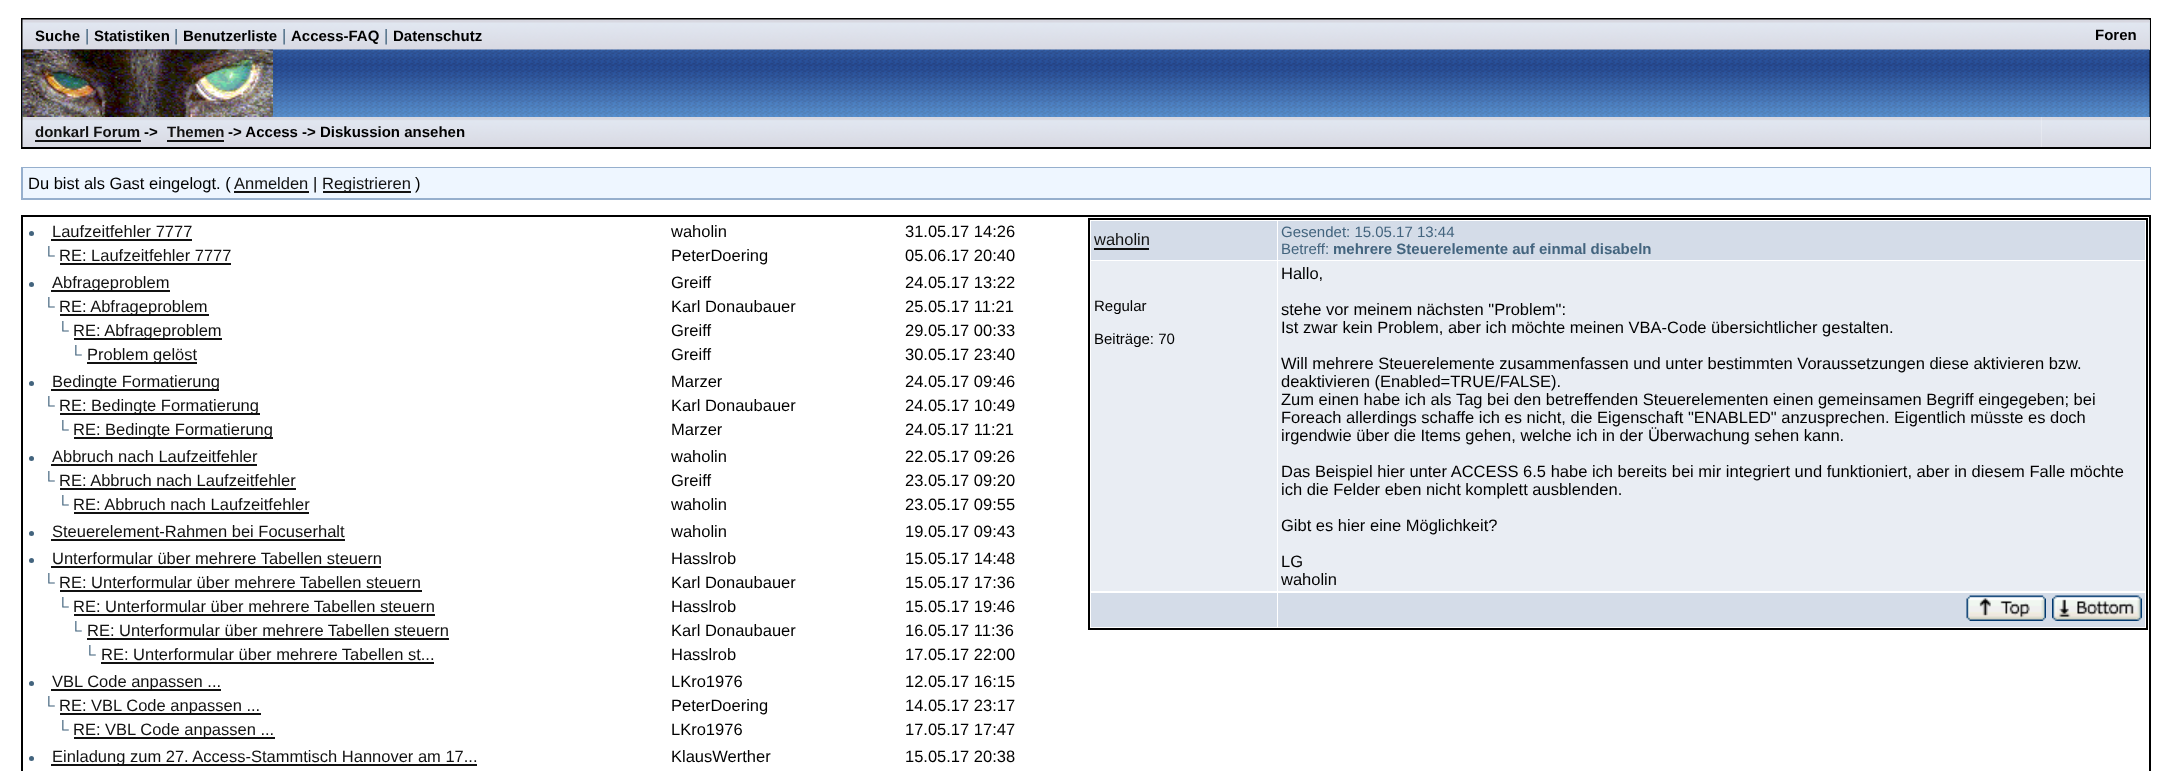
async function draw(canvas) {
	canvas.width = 2172;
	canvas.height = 771;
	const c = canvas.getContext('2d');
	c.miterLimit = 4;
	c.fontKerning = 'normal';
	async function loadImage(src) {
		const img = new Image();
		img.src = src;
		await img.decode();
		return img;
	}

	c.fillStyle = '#fff';
	c.fillRect(0, 0, 2172, 771);
	c.strokeStyle = '#000';
	c.lineWidth = 2;
	c.strokeRect(22, 19, 2128, 129);
	c.fillStyle = '#d0d7dd';
	c.fillRect(23, 20, 2127, 30);
	c.drawImage(await loadImage('img1.png'), 22, 19, 2128, 31);
	c.font = 'bold 15px Liberation Sans';
	c.fillStyle = '#000';
	c.fillText('Suche', 35, 41);
	c.font = '16.5px Liberation Sans';
	c.fillStyle = '#43647e';
	c.fillText('|', 85, 41);
	c.font = 'bold 15px Liberation Sans';
	c.fillStyle = '#000';
	c.fillText('Statistiken', 94, 41);
	c.font = '16.5px Liberation Sans';
	c.fillStyle = '#43647e';
	c.fillText('|', 174, 41);
	c.font = 'bold 15px Liberation Sans';
	c.fillStyle = '#000';
	c.fillText('Benutzerliste', 183, 41);
	c.font = '16.5px Liberation Sans';
	c.fillStyle = '#43647e';
	c.fillText('|', 282, 41);
	c.font = 'bold 15px Liberation Sans';
	c.fillStyle = '#000';
	c.fillText('Access-FAQ', 291, 41);
	c.font = '16.5px Liberation Sans';
	c.fillStyle = '#43647e';
	c.fillText('|', 384, 41);
	c.font = 'bold 15px Liberation Sans';
	c.fillStyle = '#000';
	c.fillText('Datenschutz', 393, 41);
	c.fillText('Foren', 2095, 40);
	c.drawImage(await loadImage('img2.png'), 22, 49, 2128, 68);
	c.drawImage(await loadImage('img3.png'), 22, 49, 251, 68);
	c.drawImage(await loadImage('img4.png'), 22, 117, 2020, 30);
	c.fillStyle = '#111';
	c.fillText('donkarl Forum', 35, 137);
	c.fillRect(35, 140, 106, 2);
	c.fillStyle = '#000';
	c.fillText('->', 144, 137);
	c.fillStyle = '#111';
	c.fillText('Themen', 167, 137);
	c.fillRect(167, 140, 57, 2);
	c.fillStyle = '#000';
	c.fillText('-> Access -> Diskussion ansehen', 228, 137);
	c.fillStyle = '#d0d7dd';
	c.fillRect(2149, 117, 1, 30);
	c.drawImage(await loadImage('img5.png'), 2041, 117, 109, 30);
	c.strokeStyle = '#96afcd';
	c.strokeRect(22, 168, 2128, 31);
	c.fillStyle = '#eef6ff';
	c.fillRect(23, 168, 2127, 30);
	c.font = '16.5px Liberation Sans';
	c.fillStyle = '#000';
	c.fillText('Du bist als Gast eingelogt. (', 28, 189);
	c.fillStyle = '#111';
	c.fillText('Anmelden', 234, 189);
	c.fillRect(234, 191, 75, 2);
	c.fillStyle = '#000';
	c.fillText('|', 313, 189);
	c.fillStyle = '#111';
	c.fillRect(323, 191, 88, 2);
	c.fillText('Registrieren', 322, 189);
	c.fillStyle = '#000';
	c.fillText(')', 415, 189);
	c.strokeStyle = '#000';
	c.strokeRect(22, 216, 2128, 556);
	c.fillStyle = '#43647e';
	c.beginPath();
	c.arc(31.5, 233.5, 2.5, 0, 2 * Math.PI);
	c.fill();
	c.fillStyle = '#111';
	c.fillText('Laufzeitfehler 7777', 52, 237);
	c.fillRect(51, 239, 141, 2);
	c.fillStyle = '#000';
	c.fillText('waholin', 671, 237);
	c.fillText('31.05.17 14:26', 905, 237);
	c.fillStyle = '#43647e';
	c.fillText('└', 43, 261);
	c.fillStyle = '#111';
	c.fillText('RE: Laufzeitfehler 7777', 59, 261);
	c.fillRect(60, 263, 171, 2);
	c.fillStyle = '#000';
	c.fillText('PeterDoering', 671, 261);
	c.fillText('05.06.17 20:40', 905, 261);
	c.fillStyle = '#43647e';
	c.beginPath();
	c.arc(31.5, 284.5, 2.5, 0, 2 * Math.PI);
	c.fill();
	c.fillStyle = '#111';
	c.fillRect(51, 290, 119, 2);
	c.fillText('Abfrageproblem', 52, 288);
	c.fillStyle = '#000';
	c.fillText('Greiff', 671, 288);
	c.fillText('24.05.17 13:22', 905, 288);
	c.fillStyle = '#43647e';
	c.fillText('└', 43, 312);
	c.fillStyle = '#111';
	c.fillRect(60, 314, 149, 2);
	c.fillText('RE: Abfrageproblem', 59, 312);
	c.fillStyle = '#000';
	c.fillText('Karl Donaubauer', 671, 312);
	c.fillText('25.05.17 11:21', 905, 312);
	c.fillStyle = '#43647e';
	c.fillText('└', 57, 336);
	c.fillStyle = '#111';
	c.fillRect(74, 338, 148, 2);
	c.fillText('RE: Abfrageproblem', 73, 336);
	c.fillStyle = '#000';
	c.fillText('Greiff', 671, 336);
	c.fillText('29.05.17 00:33', 905, 336);
	c.fillStyle = '#43647e';
	c.fillText('└', 70, 360);
	c.fillStyle = '#111';
	c.fillRect(87, 362, 110, 2);
	c.fillText('Problem gelöst', 87, 360);
	c.fillStyle = '#000';
	c.fillText('Greiff', 671, 360);
	c.fillText('30.05.17 23:40', 905, 360);
	c.fillStyle = '#43647e';
	c.beginPath();
	c.arc(31.5, 383.5, 2.5, 0, 2 * Math.PI);
	c.fill();
	c.fillStyle = '#111';
	c.fillRect(51, 389, 168, 2);
	c.fillText('Bedingte Formatierung', 52, 387);
	c.fillStyle = '#000';
	c.fillText('Marzer', 671, 387);
	c.fillText('24.05.17 09:46', 905, 387);
	c.fillStyle = '#43647e';
	c.fillText('└', 43, 411);
	c.fillStyle = '#111';
	c.fillRect(60, 413, 200, 2);
	c.fillText('RE: Bedingte Formatierung', 59, 411);
	c.fillStyle = '#000';
	c.fillText('Karl Donaubauer', 671, 411);
	c.fillText('24.05.17 10:49', 905, 411);
	c.fillStyle = '#43647e';
	c.fillText('└', 57, 435);
	c.fillStyle = '#111';
	c.fillRect(74, 437, 199, 2);
	c.fillText('RE: Bedingte Formatierung', 73, 435);
	c.fillStyle = '#000';
	c.fillText('Marzer', 671, 435);
	c.fillText('24.05.17 11:21', 905, 435);
	c.fillStyle = '#43647e';
	c.beginPath();
	c.arc(31.5, 458.5, 2.5, 0, 2 * Math.PI);
	c.fill();
	c.fillStyle = '#111';
	c.fillText('Abbruch nach Laufzeitfehler', 52, 462);
	c.fillRect(51, 464, 206, 2);
	c.fillStyle = '#000';
	c.fillText('waholin', 671, 462);
	c.fillText('22.05.17 09:26', 905, 462);
	c.fillStyle = '#43647e';
	c.fillText('└', 43, 486);
	c.fillStyle = '#111';
	c.fillText('RE: Abbruch nach Laufzeitfehler', 59, 486);
	c.fillRect(60, 488, 236, 2);
	c.fillStyle = '#000';
	c.fillText('Greiff', 671, 486);
	c.fillText('23.05.17 09:20', 905, 486);
	c.fillStyle = '#43647e';
	c.fillText('└', 57, 510);
	c.fillStyle = '#111';
	c.fillText('RE: Abbruch nach Laufzeitfehler', 73, 510);
	c.fillRect(74, 512, 235, 2);
	c.fillStyle = '#000';
	c.fillText('waholin', 671, 510);
	c.fillText('23.05.17 09:55', 905, 510);
	c.fillStyle = '#43647e';
	c.beginPath();
	c.arc(31.5, 533.5, 2.5, 0, 2 * Math.PI);
	c.fill();
	c.fillStyle = '#111';
	c.fillText('Steuerelement-Rahmen bei Focuserhalt', 52, 537);
	c.fillRect(51, 539, 294, 2);
	c.fillStyle = '#000';
	c.fillText('waholin', 671, 537);
	c.fillText('19.05.17 09:43', 905, 537);
	c.fillStyle = '#43647e';
	c.beginPath();
	c.arc(31.5, 560.5, 2.5, 0, 2 * Math.PI);
	c.fill();
	c.fillStyle = '#111';
	c.fillText('Unterformular über mehrere Tabellen steuern', 52, 564);
	c.fillRect(51, 566, 330, 2);
	c.fillStyle = '#000';
	c.fillText('Hasslrob', 671, 564);
	c.fillText('15.05.17 14:48', 905, 564);
	c.fillStyle = '#43647e';
	c.fillText('└', 43, 588);
	c.fillStyle = '#111';
	c.fillText('RE: Unterformular über mehrere Tabellen steuern', 59, 588);
	c.fillRect(60, 590, 362, 2);
	c.fillStyle = '#000';
	c.fillText('Karl Donaubauer', 671, 588);
	c.fillText('15.05.17 17:36', 905, 588);
	c.fillStyle = '#43647e';
	c.fillText('└', 57, 612);
	c.fillStyle = '#111';
	c.fillText('RE: Unterformular über mehrere Tabellen steuern', 73, 612);
	c.fillRect(74, 614, 361, 2);
	c.fillStyle = '#000';
	c.fillText('Hasslrob', 671, 612);
	c.fillText('15.05.17 19:46', 905, 612);
	c.fillStyle = '#43647e';
	c.fillText('└', 70, 636);
	c.fillStyle = '#111';
	c.fillText('RE: Unterformular über mehrere Tabellen steuern', 87, 636);
	c.fillRect(87, 638, 362, 2);
	c.fillStyle = '#000';
	c.fillText('Karl Donaubauer', 671, 636);
	c.fillText('16.05.17 11:36', 905, 636);
	c.fillStyle = '#43647e';
	c.fillText('└', 84, 660);
	c.fillStyle = '#111';
	c.fillText('RE: Unterformular über mehrere Tabellen st...', 101, 660);
	c.fillRect(101, 662, 333, 2);
	c.fillStyle = '#000';
	c.fillText('Hasslrob', 671, 660);
	c.fillText('17.05.17 22:00', 905, 660);
	c.fillStyle = '#43647e';
	c.beginPath();
	c.arc(31.5, 683.5, 2.5, 0, 2 * Math.PI);
	c.fill();
	c.fillStyle = '#111';
	c.fillRect(51, 689, 170, 2);
	c.fillText('VBL Code anpassen ...', 52, 687);
	c.fillStyle = '#000';
	c.fillText('LKro1976', 671, 687);
	c.fillText('12.05.17 16:15', 905, 687);
	c.fillStyle = '#43647e';
	c.fillText('└', 43, 711);
	c.fillStyle = '#111';
	c.fillRect(60, 713, 201, 2);
	c.fillText('RE: VBL Code anpassen ...', 59, 711);
	c.fillStyle = '#000';
	c.fillText('PeterDoering', 671, 711);
	c.fillText('14.05.17 23:17', 905, 711);
	c.fillStyle = '#43647e';
	c.fillText('└', 57, 735);
	c.fillStyle = '#111';
	c.fillRect(74, 737, 201, 2);
	c.fillText('RE: VBL Code anpassen ...', 73, 735);
	c.fillStyle = '#000';
	c.fillText('LKro1976', 671, 735);
	c.fillText('17.05.17 17:47', 905, 735);
	c.fillStyle = '#43647e';
	c.beginPath();
	c.arc(31.5, 758.5, 2.5, 0, 2 * Math.PI);
	c.fill();
	c.fillStyle = '#111';
	c.fillRect(51, 764, 426, 2);
	c.fillText('Einladung zum 27. Access-Stammtisch Hannover am 17...', 52, 762);
	c.fillStyle = '#000';
	c.fillText('KlausWerther', 671, 762);
	c.fillText('15.05.17 20:38', 905, 762);
	c.strokeRect(1089, 219, 1058, 410);
	c.fillStyle = '#d4dce8';
	c.fillRect(1091, 221, 186, 39);
	c.fillStyle = '#111';
	c.fillText('waholin', 1094, 245);
	c.fillRect(1094, 248, 55, 2);
	c.fillStyle = '#d4dce8';
	c.fillRect(1278, 221, 867, 39);
	c.font = '15px Liberation Sans';
	c.fillStyle = '#43647e';
	c.fillText('Gesendet: 15.05.17 13:44', 1281, 237);
	c.fillText('Betreff:', 1281, 254);
	c.font = 'bold 15px Liberation Sans';
	c.fillText('mehrere Steuerelemente auf einmal disabeln', 1333, 254);
	c.fillStyle = '#e9edf3';
	c.fillRect(1091, 261, 186, 330);
	c.font = '15px Liberation Sans';
	c.fillStyle = '#000';
	c.fillText('Regular', 1094, 311);
	c.fillText('Beiträge: 70', 1094, 344);
	c.fillStyle = '#e9edf3';
	c.fillRect(1278, 261, 867, 330);
	c.font = '16.5px Liberation Sans';
	c.fillStyle = '#000';
	for (const [text, x, y] of [
		['Hallo,', 1281, 279],
		['stehe vor meinem nächsten "Problem":', 1281, 315],
		['Ist zwar kein Problem, aber ich möchte meinen VBA-Code übersichtlicher gestalten.', 1281, 333],
		['Will mehrere Steuerelemente zusammenfassen und unter bestimmten Voraussetzungen diese aktivieren bzw.', 1281, 369],
		['deaktivieren (Enabled=TRUE/FALSE).', 1281, 387],
		['Zum einen habe ich als Tag bei den betreffenden Steuerelementen einen gemeinsamen Begriff eingegeben; bei', 1281, 405],
		['Foreach allerdings schaffe ich es nicht, die Eigenschaft "ENABLED" anzusprechen. Eigentlich müsste es doch', 1281, 423],
		['irgendwie über die Items gehen, welche ich in der Überwachung sehen kann.', 1281, 441],
		['Das Beispiel hier unter ACCESS 6.5 habe ich bereits bei mir integriert und funktioniert, aber in diesem Falle möchte', 1281, 477],
		['ich die Felder eben nicht komplett ausblenden.', 1281, 495],
		['Gibt es hier eine Möglichkeit?', 1281, 531],
		['LG', 1281, 567],
		['waholin', 1281, 585],
	]) {
		c.fillText(text, x, y);
	}
	c.fillStyle = '#d4dce8';
	c.fillRect(1091, 593, 186, 34);
	c.fillRect(1278, 593, 867, 34);
	c.drawImage(await loadImage('img6.png'), 1966, 595, 80, 26);
	c.drawImage(await loadImage('img7.png'), 2052, 595, 90, 26);
}

draw(document.querySelector('canvas'));
